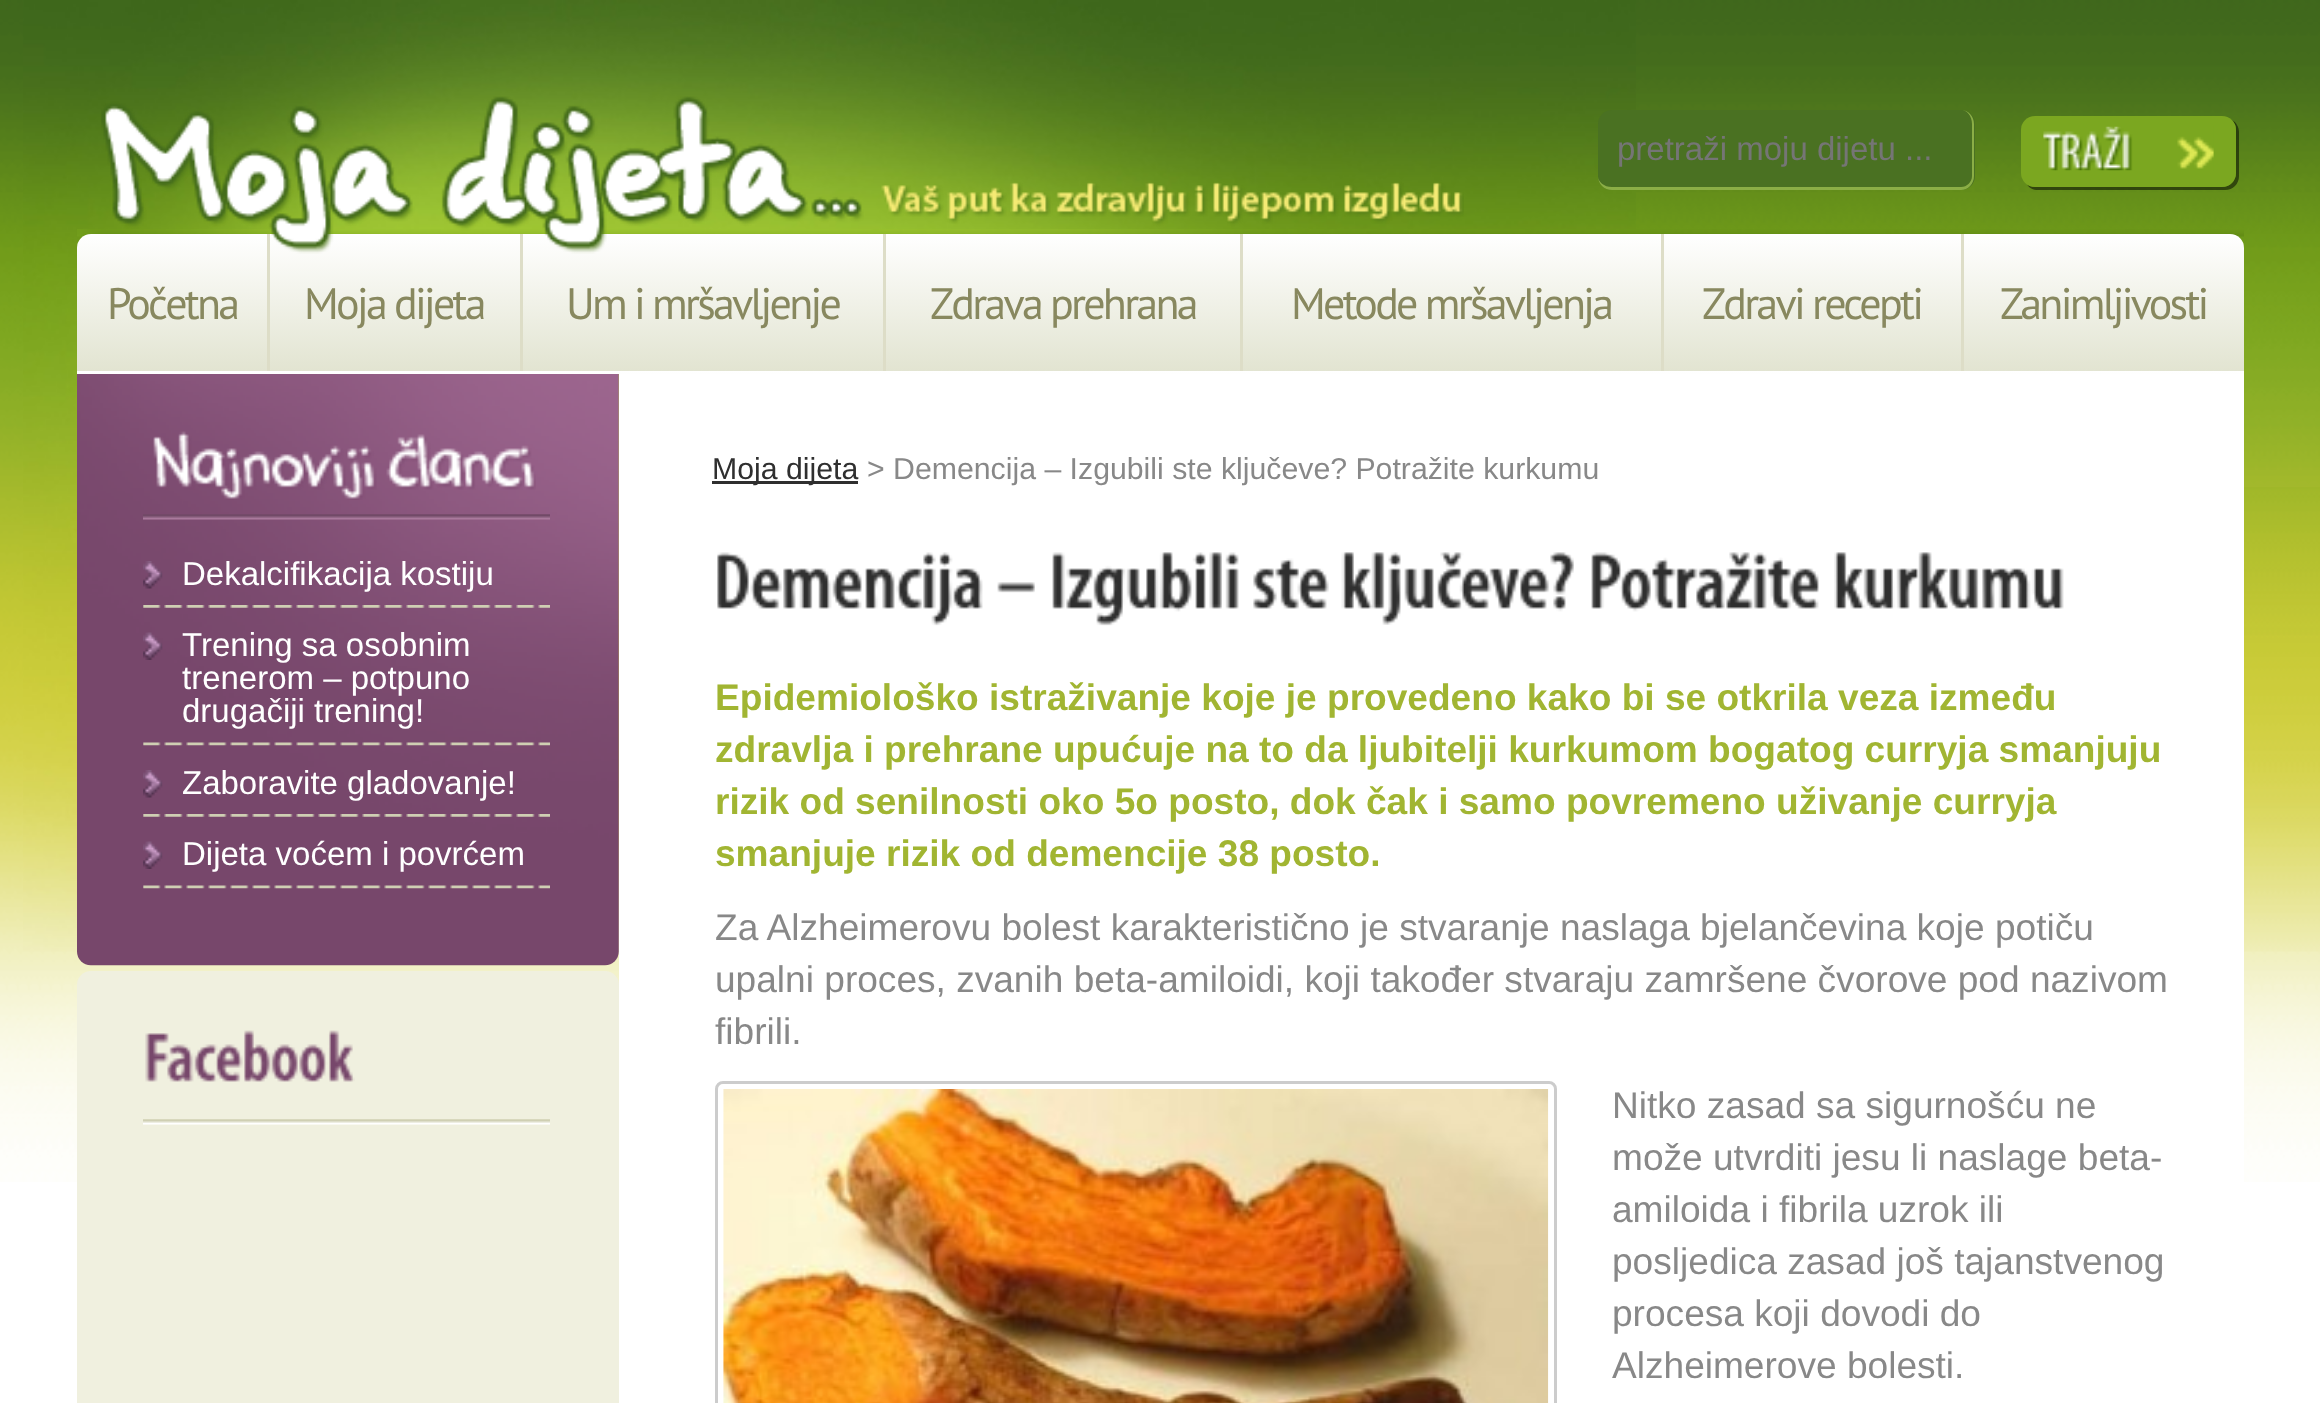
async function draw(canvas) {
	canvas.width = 2320;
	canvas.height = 1403;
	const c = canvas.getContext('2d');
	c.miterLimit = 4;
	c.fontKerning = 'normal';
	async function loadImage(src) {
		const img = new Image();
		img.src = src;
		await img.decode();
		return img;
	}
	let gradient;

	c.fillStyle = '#fff';
	c.fillRect(0, 0, 2320, 1403);
	c.drawImage(await loadImage('img1.png'), 0, 0, 2320, 1182);
	c.drawImage(await loadImage('img2.png'), 23, 0, 1613, 952);
	c.drawImage(await loadImage('img5.png'), 77, 229, 2167, 8);
	gradient = c.createLinearGradient(1161, 234, 1161, 371);
	gradient.addColorStop(0, '#fff');
	gradient.addColorStop(1, '#e2e4d1');
	c.fillStyle = gradient;
	c.beginPath();
	c.roundRect(77, 234, 2167, 137, [14, 14, 0, 0]);
	c.fill();
	for (const [x, y, w, h, color] of [
		[267, 234, 3, 137, '#ddddc7'],
		[520, 234, 3, 137, '#ddddc7'],
		[883, 234, 3, 137, '#ddddc7'],
		[1240, 234, 3, 137, '#ddddc7'],
	]) {
		c.fillStyle = color;
		c.fillRect(x, y, w, h);
	}
	c.drawImage(await loadImage('img3.png'), 101, 96, 1363, 158);
	c.fillStyle = '#4a7122';
	c.beginPath();
	c.roundRect(1598, 110, 377, 80, 14);
	c.fill();
	c.fillStyle = '#8bae46';
	c.beginPath();
	c.moveTo(1612, 110);
	c.lineTo(1961, 110);
	c.bezierCurveTo(1968, 110, 1974, 116, 1974, 124);
	c.lineTo(1974, 176);
	c.bezierCurveTo(1974, 184, 1968, 190, 1961, 190);
	c.lineTo(1612, 190);
	c.bezierCurveTo(1604, 190, 1598, 184, 1598, 176);
	c.lineTo(1598, 124);
	c.bezierCurveTo(1598, 116, 1604, 110, 1612, 110);
	c.closePath();
	c.moveTo(1612, 110);
	c.lineTo(1961, 110);
	c.bezierCurveTo(1967, 110, 1972, 116, 1972, 124);
	c.lineTo(1972, 176);
	c.bezierCurveTo(1972, 182, 1967, 187, 1961, 187);
	c.lineTo(1612, 187);
	c.bezierCurveTo(1604, 187, 1598, 182, 1598, 176);
	c.lineTo(1598, 124);
	c.bezierCurveTo(1598, 116, 1604, 110, 1612, 110);
	c.closePath();
	c.fill('evenodd');
	c.font = '33px Liberation Sans';
	c.fillStyle = '#757575';
	c.fillText('pretraži moju dijetu ...', 1617, 160);
	c.fillStyle = '#00000080';
	c.beginPath();
	c.moveTo(2027, 184);
	c.bezierCurveTo(2029, 188, 2033, 190, 2038, 190);
	c.lineTo(2225, 190);
	c.bezierCurveTo(2233, 190, 2239, 184, 2239, 176);
	c.lineTo(2239, 132);
	c.bezierCurveTo(2239, 127, 2236, 122, 2232, 120);
	c.bezierCurveTo(2234, 122, 2236, 126, 2236, 129);
	c.lineTo(2236, 173);
	c.bezierCurveTo(2236, 181, 2230, 187, 2222, 187);
	c.lineTo(2035, 187);
	c.bezierCurveTo(2032, 187, 2029, 186, 2027, 184);
	c.closePath();
	c.fill();
	c.fillStyle = '#7ba720';
	c.beginPath();
	c.roundRect(2021, 116, 215, 71, 14);
	c.fill();
	c.drawImage(await loadImage('img4.png'), 2043, 126, 171, 45);
	gradient = c.createLinearGradient(1161, 371, 1161, 509);
	gradient.addColorStop(0, '#fff');
	gradient.addColorStop(1, '#e2e4d1');
	c.fillStyle = gradient;
	c.fillRect(77, 371, 2167, 3);
	c.letterSpacing = '-2.75px';
	c.font = '44px PT Sans';
	c.fillStyle = '#88885f';
	for (const [text, x, y] of [
		['Početna', 107, 319],
		['Moja dijeta', 304, 319],
		['Um i mršavljenje', 566, 319],
		['Zdrava prehrana', 930, 319],
	]) {
		c.fillText(text, x, y);
	}
	c.fillStyle = '#ddddc7';
	c.fillRect(1661, 234, 3, 137);
	c.fillStyle = '#88885f';
	c.fillText('Metode mršavljenja', 1291, 319);
	c.fillStyle = '#ddddc7';
	c.fillRect(1961, 234, 3, 137);
	c.fillStyle = '#88885f';
	c.fillText('Zdravi recepti', 1702, 319);
	c.fillText('Zanimljivosti', 2000, 319);
	c.drawImage(await loadImage('img6.png'), 77, 374, 542, 592);
	c.drawImage(await loadImage('img7.png'), 143, 514, 407, 6);
	c.drawImage(await loadImage('img8.png'), 153, 431, 383, 69);
	c.drawImage(await loadImage('img9.png'), 143, 605, 407, 3);
	c.drawImage(await loadImage('img10.png'), 143, 561, 20, 28);
	c.letterSpacing = '0px';
	c.font = '33px Liberation Sans';
	c.fillStyle = '#fff';
	c.fillText('Dekalcifikacija kostiju', 182, 585);
	c.drawImage(await loadImage('img11.png'), 143, 742, 407, 4);
	c.drawImage(await loadImage('img12.png'), 143, 632, 20, 28);
	for (const [text, x, y] of [
		['Trening sa osobnim', 182, 656],
		['trenerom – potpuno', 182, 689],
		['drugačiji trening!', 182, 722],
	]) {
		c.fillText(text, x, y);
	}
	c.drawImage(await loadImage('img13.png'), 143, 814, 407, 3);
	c.drawImage(await loadImage('img14.png'), 143, 770, 20, 28);
	c.fillText('Zaboravite gladovanje!', 182, 794);
	c.drawImage(await loadImage('img15.png'), 143, 885, 407, 4);
	c.drawImage(await loadImage('img16.png'), 143, 841, 20, 28);
	c.fillText('Dijeta voćem i povrćem', 182, 865);
	c.fillStyle = '#f0f0df';
	c.beginPath();
	c.roundRect(77, 971, 542, 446, 14);
	c.fill();
	c.drawImage(await loadImage('img17.png'), 143, 1119, 407, 6);
	c.drawImage(await loadImage('img18.png'), 145, 1030, 210, 52);
	c.fillStyle = '#fff';
	c.fillRect(619, 374, 1625, 808);
	c.fillStyle = '#2f2f2f';
	c.fillRect(712, 481, 146, 3);
	c.font = '30.25px Liberation Sans';
	c.fillText('Moja dijeta', 712, 479);
	c.fillStyle = '#888';
	c.fillText('> Demencija – Izgubili ste ključeve? Potražite kurkumu', 867, 479);
	c.drawImage(await loadImage('img19.png'), 717, 552, 266, 74);
	c.drawImage(await loadImage('img20.png'), 997, 582, 38, 11);
	c.drawImage(await loadImage('img21.png'), 1052, 552, 187, 74);
	c.drawImage(await loadImage('img22.png'), 1253, 558, 76, 51);
	c.drawImage(await loadImage('img23.png'), 1341, 552, 233, 73);
	c.drawImage(await loadImage('img24.png'), 1591, 552, 228, 60);
	c.drawImage(await loadImage('img25.png'), 1834, 552, 230, 57);
	c.font = 'bold 37.1px Liberation Sans';
	c.fillStyle = '#a1b532';
	for (const [text, x, y] of [
		['Epidemiološko istraživanje koje je provedeno kako bi se otkrila veza između', 715, 710],
		['zdravlja i prehrane upućuje na to da ljubitelji kurkumom bogatog curryja smanjuju', 715, 762],
		['rizik od senilnosti oko 5o posto, dok čak i samo povremeno uživanje curryja', 715, 814],
		['smanjuje rizik od demencije 38 posto.', 715, 866],
	]) {
		c.fillText(text, x, y);
	}
	c.font = '37.1px Liberation Sans';
	c.fillStyle = '#888';
	for (const [text, x, y] of [
		['Za Alzheimerovu bolest karakteristično je stvaranje naslaga bjelančevina koje potiču', 715, 940],
		['upalni proces, zvanih beta-amiloidi, koji također stvaraju zamršene čvorove pod nazivom', 715, 992],
		['fibrili.', 715, 1044],
	]) {
		c.fillText(text, x, y);
	}
	c.beginPath();
	c.roundRect(716.5, 1082.5, 839, 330, 6.5);
	c.strokeStyle = '#ccc';
	c.lineWidth = 3;
	c.stroke();
	c.drawImage(await loadImage('img26.png'), 723, 1089, 826, 314);
	for (const [text, x, y] of [
		['Nitko zasad sa sigurnošću ne', 1612, 1118],
		['može utvrditi jesu li naslage beta-', 1612, 1170],
		['amiloida i fibrila uzrok ili', 1612, 1222],
		['posljedica zasad još tajanstvenog', 1612, 1274],
		['procesa koji dovodi do', 1612, 1326],
		['Alzheimerove bolesti.', 1612, 1378],
	]) {
		c.fillText(text, x, y);
	}
	c.drawImage(await loadImage('img27.png'), 2244, 487, 76, 465);
}

draw(document.querySelector('canvas'));
